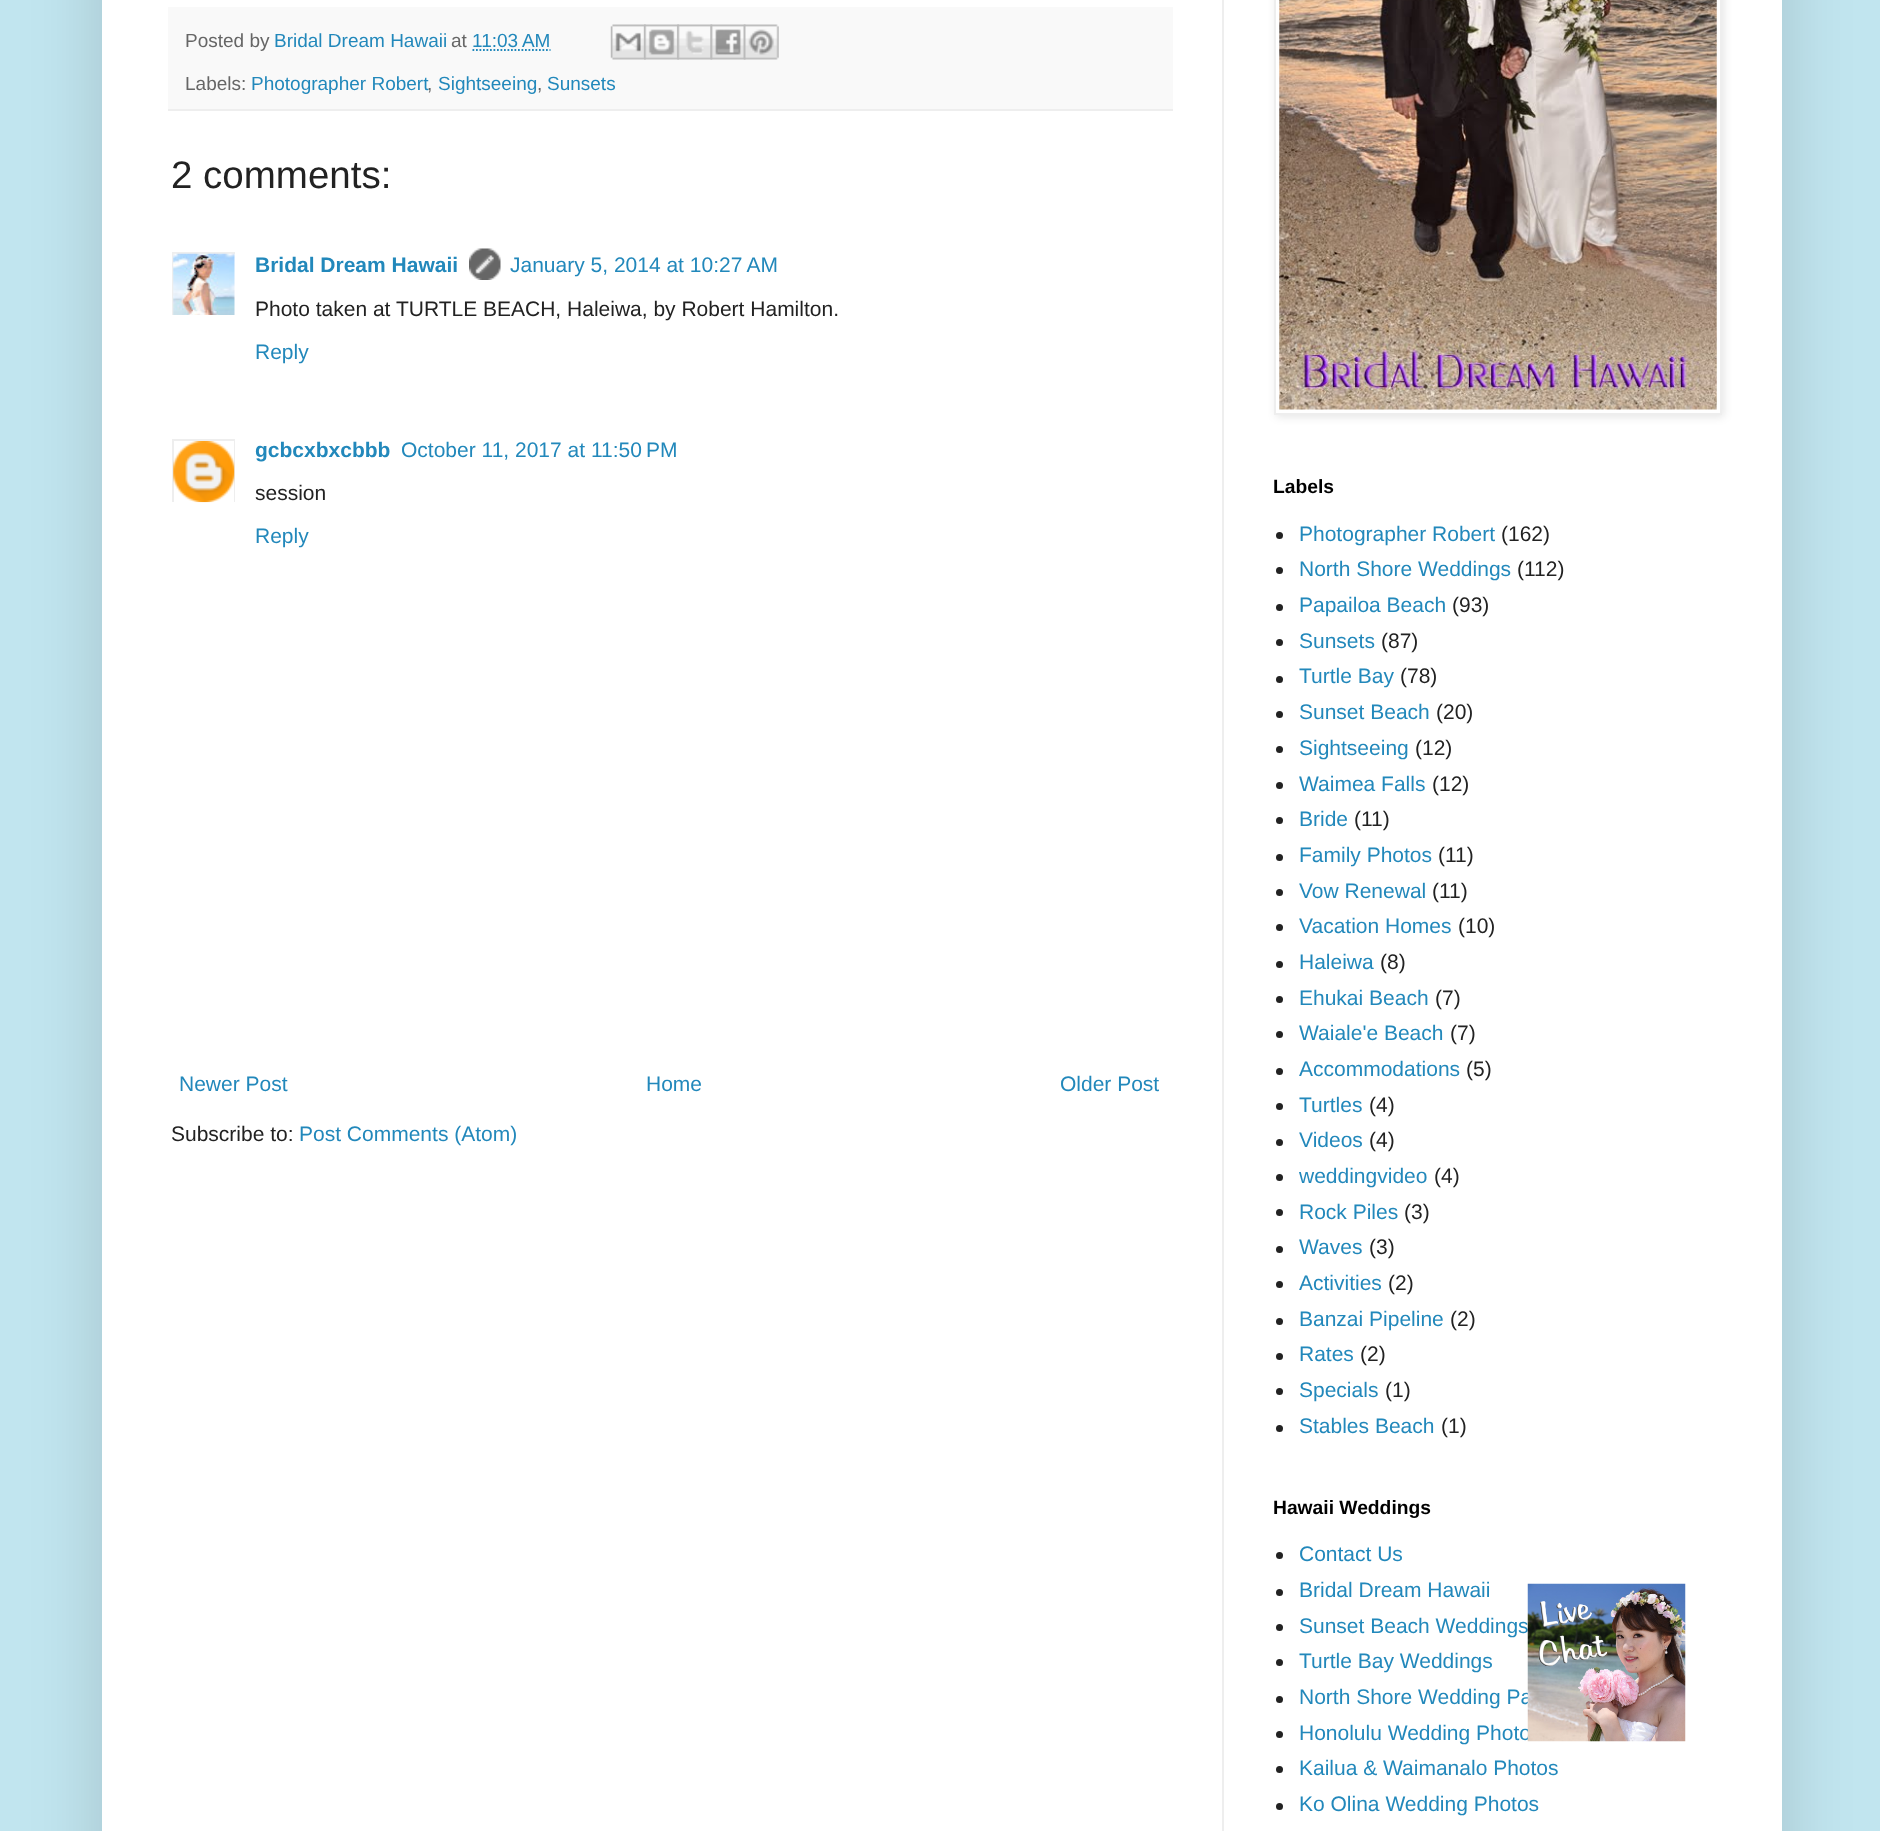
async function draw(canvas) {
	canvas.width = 1880;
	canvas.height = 1831;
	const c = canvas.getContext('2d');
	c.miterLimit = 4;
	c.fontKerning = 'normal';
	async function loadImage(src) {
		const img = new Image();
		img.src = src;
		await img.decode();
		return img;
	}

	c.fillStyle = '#c1e5ef';
	c.fillRect(0, 0, 1880, 1831);
	c.fillStyle = '#00000026';
	c.filter = 'blur(35px)';
	c.beginPath();
	c.rect(102, -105, 1680, 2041);
	c.fill();
	c.filter = 'none';
	for (const [x, y, w, h, color] of [
		[102, 0, 1680, 1831, '#fff'],
		[1222, 0, 2, 1831, '#eee'],
		[168, 7, 1005, 102, '#f9f9f9'],
		[168, 109, 1005, 2, '#eee'],
	]) {
		c.fillStyle = color;
		c.fillRect(x, y, w, h);
	}
	c.font = '19px Liberation Sans';
	c.fillStyle = '#666';
	c.fillText('Posted by', 185, 47);
	c.fillStyle = '#28b';
	c.fillText('Bridal Dream Hawaii', 274, 47);
	c.fillStyle = '#666';
	c.fillText('at', 451, 47);
	c.fillStyle = '#28b';
	c.fillText('11:03 AM', 472, 47);
	c.beginPath();
	c.moveTo(472.5, 50);
	c.lineTo(550.5, 50);
	c.strokeStyle = '#28b';
	c.lineWidth = 1.8;
	c.setLineDash([1.75, 1.75]);
	c.stroke();
	c.drawImage(await loadImage('img1.png'), 610, 24, 36, 36);
	c.drawImage(await loadImage('img2.png'), 644, 24, 35, 36);
	c.drawImage(await loadImage('img3.png'), 677, 24, 36, 36);
	c.drawImage(await loadImage('img4.png'), 710, 24, 36, 36);
	c.drawImage(await loadImage('img5.png'), 743, 24, 36, 36);
	c.fillStyle = '#666';
	c.fillText('Labels:', 185, 90);
	c.fillStyle = '#28b';
	c.fillText('Photographer Robert', 251, 90);
	c.fillStyle = '#666';
	c.fillText(',', 427, 90);
	c.fillStyle = '#28b';
	c.fillText('Sightseeing', 438, 90);
	c.fillStyle = '#666';
	c.fillText(',', 537, 90);
	c.fillStyle = '#28b';
	c.fillText('Sunsets', 547, 90);
	c.font = '38.5px Liberation Sans';
	c.fillStyle = '#222';
	c.fillText('2 comments:', 171, 188);
	c.save();
	c.beginPath();
	c.rect(172, 252, 63, 63);
	c.clip();
	c.strokeStyle = '#eee';
	c.lineWidth = 2;
	c.setLineDash([]);
	c.strokeRect(173, 253, 64, 65);
	c.restore();
	c.drawImage(await loadImage('img6.png'), 173, 253, 62, 62);
	c.font = 'bold 21px Liberation Sans';
	c.fillStyle = '#28b';
	c.fillText('Bridal Dream Hawaii', 255, 272);
	c.drawImage(await loadImage('img7.png'), 469, 248, 32, 32);
	c.font = '21px Liberation Sans';
	c.fillText('January 5, 2014 at 10:27 AM', 510, 272);
	c.fillStyle = '#222';
	c.fillText('Photo taken at TURTLE BEACH, Haleiwa, by Robert Hamilton.', 255, 316);
	c.fillStyle = '#28b';
	c.fillText('Reply', 255, 359);
	c.save();
	c.beginPath();
	c.rect(172, 439, 63, 63);
	c.clip();
	c.strokeStyle = '#eee';
	c.lineWidth = 2;
	c.setLineDash([]);
	c.strokeRect(173, 440, 62, 63);
	c.restore();
	c.drawImage(await loadImage('img8.png'), 173, 441, 62, 62);
	c.font = 'bold 21px Liberation Sans';
	c.fillText('gcbcxbxcbbb', 255, 457);
	c.font = '21px Liberation Sans';
	c.fillText('October 11, 2017 at 11:50 PM', 401, 457);
	c.fillStyle = '#222';
	c.fillText('session', 255, 500);
	c.fillStyle = '#28b';
	for (const [text, x, y] of [
		['Reply', 255, 543],
		['Newer Post', 179, 1091],
		['Home', 646, 1091],
		['Older Post', 1060, 1091],
	]) {
		c.fillText(text, x, y);
	}
	c.fillStyle = '#222';
	c.fillText('Subscribe to:', 171, 1141);
	c.fillStyle = '#28b';
	c.fillText('Post Comments (Atom)', 299, 1141);
	c.fillStyle = '#0000001a';
	c.filter = 'blur(4.5px)';
	c.beginPath();
	c.rect(1276, -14, 448, 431);
	c.fill();
	c.filter = 'none';
	c.fillStyle = '#fff';
	c.beginPath();
	c.rect(1275, -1, 446, 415);
	c.fill();
	c.strokeStyle = '#eee';
	c.lineWidth = 2;
	c.setLineDash([]);
	c.stroke();
	c.drawImage(await loadImage('img9.png'), 1279, 0, 438, 410);
	c.font = 'bold 19.25px Liberation Sans';
	c.fillStyle = '#000';
	c.fillText('Labels', 1273, 493);
	c.fillStyle = '#222';
	c.beginPath();
	c.arc(1279.5, 535.5, 3.5, 0, 2 * Math.PI);
	c.fill();
	c.font = '21px Liberation Sans';
	c.fillStyle = '#28b';
	c.fillText('Photographer Robert', 1299, 541);
	c.fillStyle = '#222';
	c.fillText('(162)', 1501, 541);
	c.beginPath();
	c.arc(1279.5, 570.5, 3.5, 0, 2 * Math.PI);
	c.fill();
	c.fillStyle = '#28b';
	c.fillText('North Shore Weddings', 1299, 576);
	c.fillStyle = '#222';
	c.fillText('(112)', 1517, 576);
	c.beginPath();
	c.arc(1279.5, 607.5, 3.5, 0, 2 * Math.PI);
	c.fill();
	c.fillStyle = '#28b';
	c.fillText('Papailoa Beach', 1299, 612);
	c.fillStyle = '#222';
	c.fillText('(93)', 1452, 612);
	c.beginPath();
	c.arc(1279.5, 642.5, 3.5, 0, 2 * Math.PI);
	c.fill();
	c.fillStyle = '#28b';
	c.fillText('Sunsets', 1299, 648);
	c.fillStyle = '#222';
	c.fillText('(87)', 1381, 648);
	c.beginPath();
	c.arc(1279.5, 679.5, 3.5, 0, 2 * Math.PI);
	c.fill();
	c.fillStyle = '#28b';
	c.fillText('Turtle Bay', 1299, 683);
	c.fillStyle = '#222';
	c.fillText('(78)', 1400, 683);
	c.beginPath();
	c.arc(1279.5, 714.5, 3.5, 0, 2 * Math.PI);
	c.fill();
	c.fillStyle = '#28b';
	c.fillText('Sunset Beach', 1299, 719);
	c.fillStyle = '#222';
	c.fillText('(20)', 1436, 719);
	c.beginPath();
	c.arc(1279.5, 749.5, 3.5, 0, 2 * Math.PI);
	c.fill();
	c.fillStyle = '#28b';
	c.fillText('Sightseeing', 1299, 755);
	c.fillStyle = '#222';
	c.fillText('(12)', 1415, 755);
	c.beginPath();
	c.arc(1279.5, 785.5, 3.5, 0, 2 * Math.PI);
	c.fill();
	c.fillStyle = '#28b';
	c.fillText('Waimea Falls', 1299, 791);
	c.fillStyle = '#222';
	c.fillText('(12)', 1432, 791);
	c.beginPath();
	c.arc(1279.5, 820.5, 3.5, 0, 2 * Math.PI);
	c.fill();
	c.fillStyle = '#28b';
	c.fillText('Bride', 1299, 826);
	c.fillStyle = '#222';
	c.fillText('(11)', 1354, 826);
	c.beginPath();
	c.arc(1279.5, 857.5, 3.5, 0, 2 * Math.PI);
	c.fill();
	c.fillStyle = '#28b';
	c.fillText('Family Photos', 1299, 862);
	c.fillStyle = '#222';
	c.fillText('(11)', 1438, 862);
	c.beginPath();
	c.arc(1279.5, 892.5, 3.5, 0, 2 * Math.PI);
	c.fill();
	c.fillStyle = '#28b';
	c.fillText('Vow Renewal', 1299, 898);
	c.fillStyle = '#222';
	c.fillText('(11)', 1432, 898);
	c.beginPath();
	c.arc(1279.5, 927.5, 3.5, 0, 2 * Math.PI);
	c.fill();
	c.fillStyle = '#28b';
	c.fillText('Vacation Homes', 1299, 933);
	c.fillStyle = '#222';
	c.fillText('(10)', 1458, 933);
	c.beginPath();
	c.arc(1279.5, 964.5, 3.5, 0, 2 * Math.PI);
	c.fill();
	c.fillStyle = '#28b';
	c.fillText('Haleiwa', 1299, 969);
	c.fillStyle = '#222';
	c.fillText('(8)', 1380, 969);
	c.beginPath();
	c.arc(1279.5, 999.5, 3.5, 0, 2 * Math.PI);
	c.fill();
	c.fillStyle = '#28b';
	c.fillText('Ehukai Beach', 1299, 1005);
	c.fillStyle = '#222';
	c.fillText('(7)', 1435, 1005);
	c.beginPath();
	c.arc(1279.5, 1034.5, 3.5, 0, 2 * Math.PI);
	c.fill();
	c.fillStyle = '#28b';
	c.fillText('Waiale\'e Beach', 1299, 1040);
	c.fillStyle = '#222';
	c.fillText('(7)', 1450, 1040);
	c.beginPath();
	c.arc(1279.5, 1071.5, 3.5, 0, 2 * Math.PI);
	c.fill();
	c.fillStyle = '#28b';
	c.fillText('Accommodations', 1299, 1076);
	c.fillStyle = '#222';
	c.fillText('(5)', 1466, 1076);
	c.beginPath();
	c.arc(1279.5, 1106.5, 3.5, 0, 2 * Math.PI);
	c.fill();
	c.fillStyle = '#28b';
	c.fillText('Turtles', 1299, 1112);
	c.fillStyle = '#222';
	c.fillText('(4)', 1369, 1112);
	c.beginPath();
	c.arc(1279.5, 1142.5, 3.5, 0, 2 * Math.PI);
	c.fill();
	c.fillStyle = '#28b';
	c.fillText('Videos', 1299, 1147);
	c.fillStyle = '#222';
	c.fillText('(4)', 1369, 1147);
	c.beginPath();
	c.arc(1279.5, 1177.5, 3.5, 0, 2 * Math.PI);
	c.fill();
	c.fillStyle = '#28b';
	c.fillText('weddingvideo', 1299, 1183);
	c.fillStyle = '#222';
	c.fillText('(4)', 1434, 1183);
	c.beginPath();
	c.arc(1279.5, 1212.5, 3.5, 0, 2 * Math.PI);
	c.fill();
	c.fillStyle = '#28b';
	c.fillText('Rock Piles', 1299, 1219);
	c.fillStyle = '#222';
	c.fillText('(3)', 1404, 1219);
	c.beginPath();
	c.arc(1279.5, 1249.5, 3.5, 0, 2 * Math.PI);
	c.fill();
	c.fillStyle = '#28b';
	c.fillText('Waves', 1299, 1254);
	c.fillStyle = '#222';
	c.fillText('(3)', 1369, 1254);
	c.beginPath();
	c.arc(1279.5, 1284.5, 3.5, 0, 2 * Math.PI);
	c.fill();
	c.fillStyle = '#28b';
	c.fillText('Activities', 1299, 1290);
	c.fillStyle = '#222';
	c.fillText('(2)', 1388, 1290);
	c.beginPath();
	c.arc(1279.5, 1321.5, 3.5, 0, 2 * Math.PI);
	c.fill();
	c.fillStyle = '#28b';
	c.fillText('Banzai Pipeline', 1299, 1326);
	c.fillStyle = '#222';
	c.fillText('(2)', 1450, 1326);
	c.beginPath();
	c.arc(1279.5, 1356.5, 3.5, 0, 2 * Math.PI);
	c.fill();
	c.fillStyle = '#28b';
	c.fillText('Rates', 1299, 1361);
	c.fillStyle = '#222';
	c.fillText('(2)', 1360, 1361);
	c.beginPath();
	c.arc(1279.5, 1391.5, 3.5, 0, 2 * Math.PI);
	c.fill();
	c.fillStyle = '#28b';
	c.fillText('Specials', 1299, 1397);
	c.fillStyle = '#222';
	c.fillText('(1)', 1385, 1397);
	c.beginPath();
	c.arc(1279.5, 1428.5, 3.5, 0, 2 * Math.PI);
	c.fill();
	c.fillStyle = '#28b';
	c.fillText('Stables Beach', 1299, 1433);
	c.fillStyle = '#222';
	c.fillText('(1)', 1441, 1433);
	c.font = 'bold 19.25px Liberation Sans';
	c.fillStyle = '#000';
	c.fillText('Hawaii Weddings', 1273, 1514);
	c.fillStyle = '#222';
	c.beginPath();
	c.arc(1279.5, 1555.5, 3.5, 0, 2 * Math.PI);
	c.fill();
	c.font = '21px Liberation Sans';
	c.fillStyle = '#28b';
	c.fillText('Contact Us', 1299, 1561);
	c.fillStyle = '#222';
	c.beginPath();
	c.arc(1279.5, 1592.5, 3.5, 0, 2 * Math.PI);
	c.fill();
	c.fillStyle = '#28b';
	c.fillText('Bridal Dream Hawaii', 1299, 1597);
	c.fillStyle = '#222';
	c.beginPath();
	c.arc(1279.5, 1627.5, 3.5, 0, 2 * Math.PI);
	c.fill();
	c.fillStyle = '#28b';
	c.fillText('Sunset Beach Weddings', 1299, 1633);
	c.fillStyle = '#222';
	c.beginPath();
	c.arc(1279.5, 1662.5, 3.5, 0, 2 * Math.PI);
	c.fill();
	c.fillStyle = '#28b';
	c.fillText('Turtle Bay Weddings', 1299, 1668);
	c.fillStyle = '#222';
	c.beginPath();
	c.arc(1279.5, 1699.5, 3.5, 0, 2 * Math.PI);
	c.fill();
	c.fillStyle = '#28b';
	c.fillText('North Shore Wedding Pa', 1299, 1704);
	c.fillStyle = '#222';
	c.beginPath();
	c.arc(1279.5, 1734.5, 3.5, 0, 2 * Math.PI);
	c.fill();
	c.fillStyle = '#28b';
	c.fillText('Honolulu Wedding Photo', 1299, 1740);
	c.fillStyle = '#222';
	c.beginPath();
	c.arc(1279.5, 1769.5, 3.5, 0, 2 * Math.PI);
	c.fill();
	c.fillStyle = '#28b';
	c.fillText('Kailua & Waimanalo Photos', 1299, 1775);
	c.fillStyle = '#222';
	c.beginPath();
	c.arc(1279.5, 1806.5, 3.5, 0, 2 * Math.PI);
	c.fill();
	c.fillStyle = '#28b';
	c.fillText('Ko Olina Wedding Photos', 1299, 1811);
	c.drawImage(await loadImage('img10.png'), 1527, 1583, 159, 159);
}

draw(document.querySelector('canvas'));
